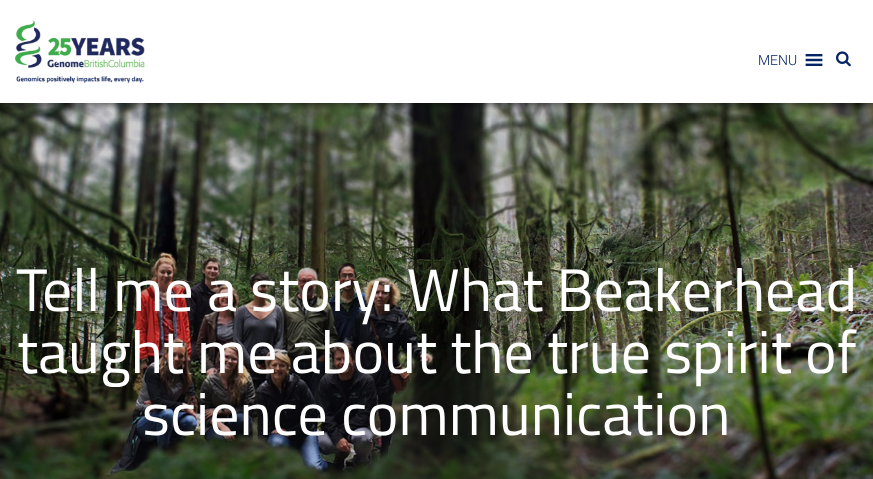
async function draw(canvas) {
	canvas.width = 873;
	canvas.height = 479;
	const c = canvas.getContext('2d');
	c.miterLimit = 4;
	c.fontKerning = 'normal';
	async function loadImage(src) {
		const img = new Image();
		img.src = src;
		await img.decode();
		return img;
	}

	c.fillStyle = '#fff';
	c.fillRect(0, 0, 873, 479);
	c.drawImage(await loadImage('img4.png'), 0, 103, 873, 376);
	c.save();
	c.beginPath();
	c.rect(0, 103, 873, 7);
	c.clip();
	c.fillStyle = '#00000080';
	c.filter = 'blur(3px)';
	c.beginPath();
	c.rect(1, 2, 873, 103);
	c.fill();
	c.filter = 'none';
	c.restore();
	c.drawImage(await loadImage('img1.png'), 15, 20, 130, 63);
	c.font = '300 14px Roboto';
	c.fillStyle = '#032366';
	c.fillText('MENU', 758, 65);
	c.drawImage(await loadImage('img2.png'), 805, 54, 18, 12);
	c.drawImage(await loadImage('img3.png'), 836, 51, 15, 16);
	c.font = '60px Titillium Web';
	c.fillStyle = '#fff';
	for (const [text, x, y] of [
		['Tell me a story: What Beakerhead', 16, 311],
		['taught me about the true spirit of', 17, 373],
		['science communication', 142, 435],
	]) {
		c.fillText(text, x, y);
	}
}

draw(document.querySelector('canvas'));
